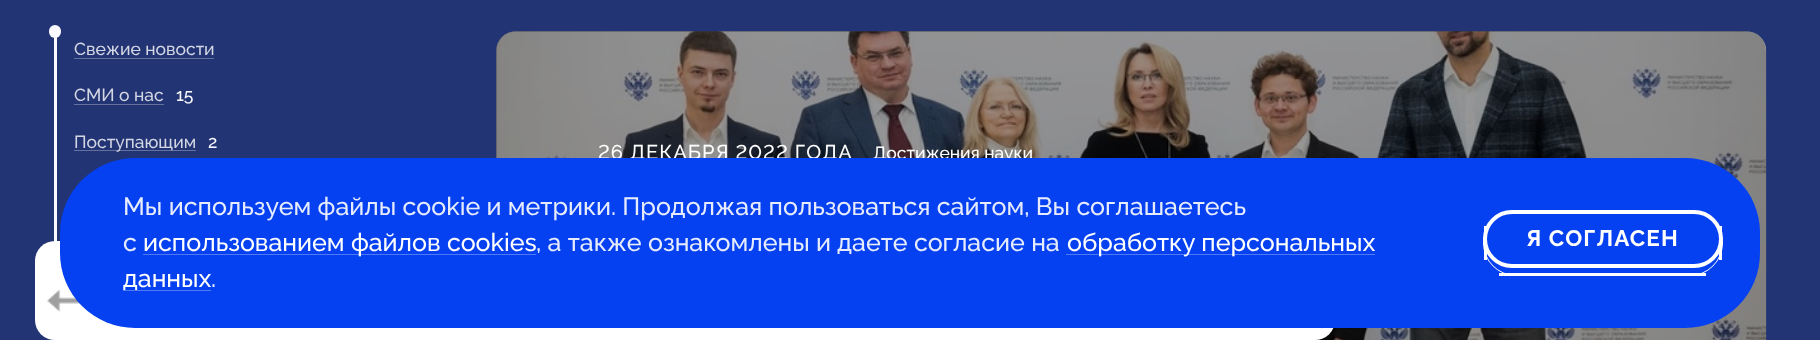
async function draw(canvas) {
	canvas.width = 1820;
	canvas.height = 340;
	const c = canvas.getContext('2d');
	c.miterLimit = 4;
	c.fontKerning = 'normal';
	async function loadImage(src) {
		const img = new Image();
		img.src = src;
		await img.decode();
		return img;
	}

	c.fillStyle = '#223473';
	c.fillRect(0, 0, 1820, 340);
	c.fillStyle = '#f9f9ff';
	c.fillRect(54, 31, 3, 309);
	c.beginPath();
	c.roundRect(49, 25, 12, 13, 6);
	c.fill();
	c.font = '500 17.5px Raleway';
	c.fillStyle = '#d3d6e3';
	c.fillText('Свежие новости', 74, 55);
	c.fillStyle = '#64719d';
	c.fillRect(74, 58, 140, 1);
	c.fillStyle = '#d3d6e3';
	c.fillText('СМИ о нас', 74, 101);
	c.fillStyle = '#64719d';
	c.fillRect(74, 104, 90, 1);
	c.fillStyle = '#f9f9ff';
	c.fillText('15', 176, 101);
	c.fillStyle = '#64719d';
	c.fillRect(74, 150, 122, 1);
	c.fillStyle = '#d3d6e3';
	c.fillText('Поступающим', 74, 148);
	c.fillStyle = '#f9f9ff';
	c.fillText('2', 208, 148);
	c.fillStyle = '#586596';
	c.beginPath();
	c.roundRect(496, 31, 1270, 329, 20);
	c.fill();
	c.drawImage(await loadImage('img1.png'), 496, 31, 1271, 309);
	c.fillStyle = '#00000066';
	c.beginPath();
	c.roundRect(496, 31, 1270, 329, 20);
	c.fill();
	c.letterSpacing = '1px';
	c.font = '500 20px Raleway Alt';
	c.fillStyle = '#fff';
	c.fillText('26 ДЕКАБРЯ 2022 ГОДА', 598, 159);
	c.letterSpacing = '0px';
	c.font = '500 17.5px Raleway';
	c.fillText('Достижения науки', 873, 159);
	c.beginPath();
	c.roundRect(35, 241, 1300, 99, 20);
	c.fill();
	c.drawImage(await loadImage('img2.png'), 47, 290, 33, 22);
	c.fillStyle = '#0541f0';
	c.beginPath();
	c.roundRect(60, 158, 1700, 170, 75);
	c.fill();
	c.font = '500 25px Raleway';
	c.fillStyle = '#e6ecfe';
	c.fillText('Мы используем файлы cookie и метрики. Продолжая пользоваться сайтом, Вы соглашаетесь', 123, 215);
	c.fillText('с', 123, 251);
	c.fillStyle = '#507af5';
	c.fillRect(143, 254, 393, 1);
	c.fillStyle = '#fff';
	c.fillText('использованием файлов cookies', 143, 251);
	c.fillStyle = '#e6ecfe';
	c.fillText(', а также ознакомлены и даете согласие на', 536, 251);
	c.fillStyle = '#507af5';
	c.fillRect(1066, 254, 309, 1);
	c.fillStyle = '#fff';
	c.fillText('обработку персональных', 1067, 251);
	c.fillStyle = '#507af5';
	c.fillRect(123, 290, 88, 1);
	c.fillStyle = '#fff';
	c.fillText('данных', 123, 287);
	c.fillStyle = '#e6ecfe';
	c.fillText('.', 211, 287);
	c.beginPath();
	c.roundRect(1485, 212, 236, 54, 27);
	c.strokeStyle = '#fff';
	c.lineWidth = 4;
	c.stroke();
	c.beginPath();
	c.roundRect(1483.5, 210.5, 239, 65, 32.5);
	c.lineWidth = 1;
	c.stroke();
	for (const [x, y, w, h, color] of [
		[1719, 226, 3, 34, '#fff'],
		[1499, 273, 207, 3, '#fff'],
		[1484, 226, 3, 34, '#fff'],
	]) {
		c.fillStyle = color;
		c.fillRect(x, y, w, h);
	}
	c.letterSpacing = '1.1px';
	c.font = 'bold 22.5px Raleway';
	c.fillText('Я СОГЛАСЕН', 1526, 246);
}

draw(document.querySelector('canvas'));
